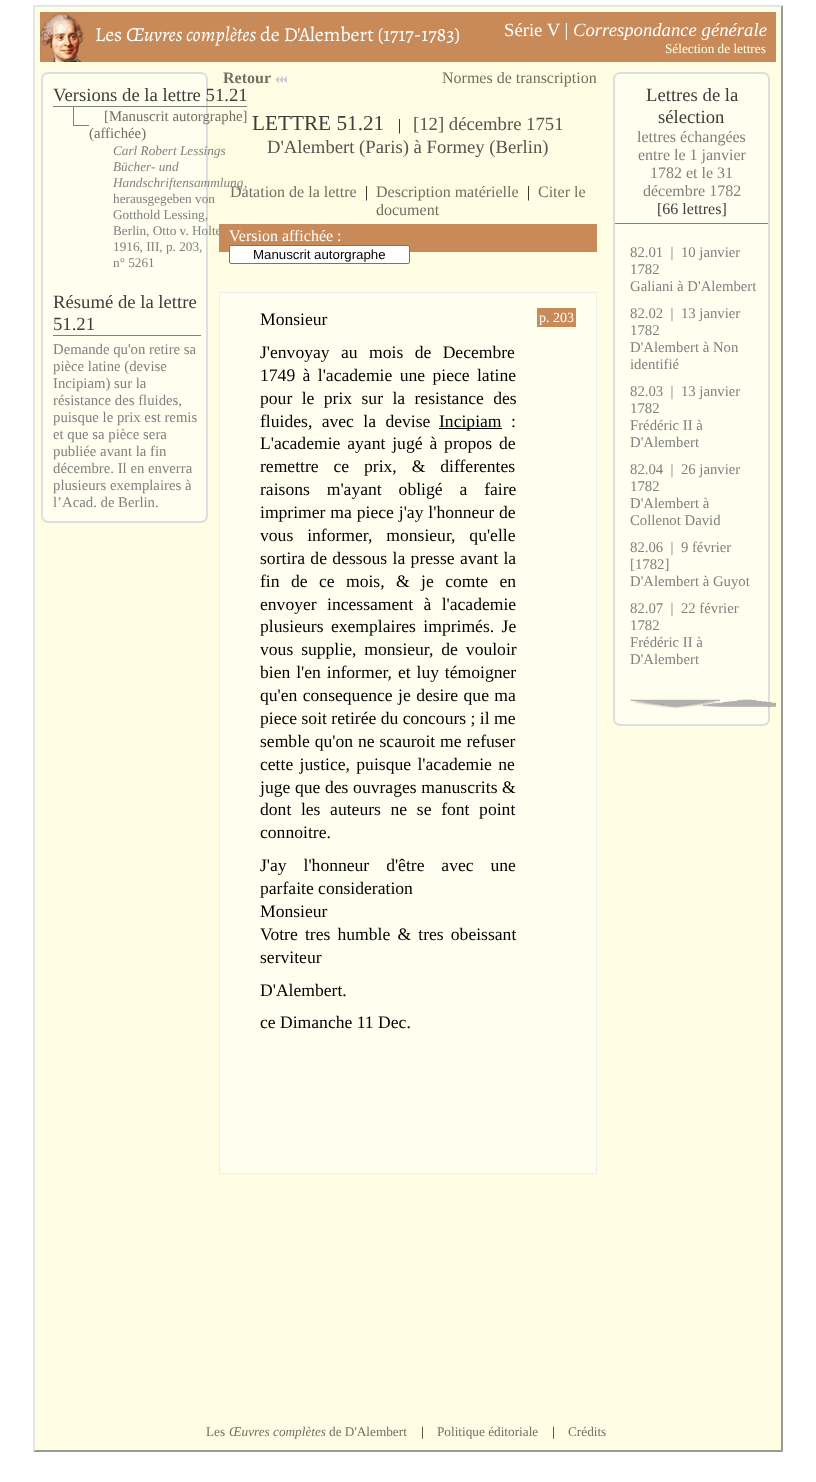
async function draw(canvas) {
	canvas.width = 816;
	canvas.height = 1482;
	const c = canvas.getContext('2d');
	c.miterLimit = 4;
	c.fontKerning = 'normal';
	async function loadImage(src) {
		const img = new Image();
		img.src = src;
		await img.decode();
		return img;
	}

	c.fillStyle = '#fff';
	c.fillRect(0, 0, 816, 1482);
	c.fillStyle = '#fffee5';
	c.fillRect(33, 5, 750, 1447);
	c.fillStyle = '#e5e5e2';
	c.beginPath();
	c.moveTo(33, 5);
	c.lineTo(783, 5);
	c.lineTo(781, 7);
	c.lineTo(35, 7);
	c.closePath();
	c.fill();
	c.fillStyle = '#999997';
	c.beginPath();
	c.moveTo(783, 5);
	c.lineTo(783, 1452);
	c.lineTo(781, 1450);
	c.lineTo(781, 7);
	c.closePath();
	c.fill();
	c.beginPath();
	c.moveTo(783, 1452);
	c.lineTo(33, 1452);
	c.lineTo(35, 1450);
	c.lineTo(781, 1450);
	c.closePath();
	c.fill();
	c.fillStyle = '#e5e5e2';
	c.beginPath();
	c.moveTo(33, 1452);
	c.lineTo(33, 5);
	c.lineTo(35, 7);
	c.lineTo(35, 1450);
	c.closePath();
	c.fill();
	c.fillStyle = '#c88a58';
	c.fillRect(86, 12, 690, 50);
	c.drawImage(await loadImage('img1.png'), 40, 12, 46, 50);
	c.font = '20px Alegreya';
	c.fillStyle = '#fff';
	c.fillText('Les', 95, 41);
	c.font = 'italic 20px Alegreya';
	c.fillText('Œuvres complètes', 126, 41);
	c.font = '20px Alegreya';
	c.fillText('de D\'Alembert (1717-1783)', 260, 41);
	c.font = '18.7px Liberation Serif';
	c.fillText('Série V |', 504, 36);
	c.font = 'italic 18.7px Liberation Serif';
	c.fillText('Correspondance générale', 573, 36);
	c.font = '13.25px Liberation Serif';
	c.fillStyle = '#ffffe5';
	c.fillText('Sélection de lettres', 665, 53);
	c.fillStyle = '#fffff0';
	c.beginPath();
	c.roundRect(42, 73, 165, 449, 6);
	c.fill();
	c.strokeStyle = '#dfdede';
	c.lineWidth = 2;
	c.stroke();
	c.fillStyle = '#808080';
	c.fillRect(53, 106, 194, 1);
	c.font = '18.7px Liberation Serif';
	c.fillStyle = '#3d3d3c';
	c.fillText('Versions de la lettre 51.21', 53, 101);
	c.fillStyle = '#808080';
	c.fillRect(73, 125, 16, 1);
	c.fillRect(73, 107, 1, 19);
	c.font = '14.75px Liberation Serif';
	c.fillStyle = '#786c62';
	c.fillText('[Manuscrit autorgraphe]', 104, 121);
	c.fillText('(affichée)', 89, 138);
	c.font = 'italic 13.25px Liberation Serif';
	c.fillStyle = '#808080';
	for (const [text, x, y] of [
		['Carl Robert Lessings', 113, 155],
		['Bücher- und', 113, 171],
		['Handschriftensammlung', 113, 187],
	]) {
		c.fillText(text, x, y);
	}
	c.font = '13.25px Liberation Serif';
	for (const [text, x, y] of [
		[',', 244, 187],
		['herausgegeben von', 113, 203],
		['Gotthold Lessing,', 113, 219],
		['Berlin, Otto v. Holte', 113, 235],
		['1916, III, p. 203,', 113, 251],
		['n° 5261', 113, 267],
	]) {
		c.fillText(text, x, y);
	}
	c.fillRect(53, 335, 148, 1);
	c.font = '18.7px Liberation Serif';
	c.fillStyle = '#3d3d3c';
	c.fillText('Résumé de la lettre', 53, 308);
	c.fillText('51.21', 53, 330);
	c.font = '14.75px Liberation Serif';
	c.fillStyle = '#808080';
	for (const [text, x, y] of [
		['Demande qu\'on retire sa', 53, 354],
		['pièce latine (devise', 53, 371],
		['Incipiam) sur la', 53, 388],
		['résistance des fluides,', 53, 405],
		['puisque le prix est remis', 53, 422],
		['et que sa pièce sera', 53, 439],
		['publiée avant la fin', 53, 456],
		['décembre. Il en enverra', 53, 473],
		['plusieurs exemplaires à', 53, 490],
		['l’Acad. de Berlin.', 53, 507],
	]) {
		c.fillText(text, x, y);
	}
	c.font = 'bold 16px Liberation Serif';
	c.fillStyle = '#786c62';
	c.fillText('Retour', 223, 83);
	c.drawImage(await loadImage('img2.png'), 275, 76, 4, 7);
	c.drawImage(await loadImage('img2.png'), 279, 76, 4, 7);
	c.drawImage(await loadImage('img2.png'), 283, 76, 4, 7);
	c.font = '16px Liberation Serif';
	c.fillText('Normes de transcription', 442, 83);
	c.font = '21.25px Liberation Serif';
	c.fillStyle = '#3d3d3c';
	c.fillText('LETTRE 51.21', 252, 130);
	c.font = '16px Liberation Serif';
	c.fillStyle = '#000';
	c.fillText('|', 398, 130);
	c.font = '18.7px Liberation Serif';
	c.fillStyle = '#59534f';
	c.fillText('[12] décembre 1751', 413, 130);
	c.fillText('D\'Alembert (Paris) à Formey (Berlin)', 267, 153);
	c.font = '16px Liberation Serif';
	c.fillStyle = '#786c62';
	c.fillText('Datation de la lettre', 230, 197);
	c.fillStyle = '#000';
	c.fillText('|', 365, 197);
	c.fillStyle = '#786c62';
	c.fillText('Description matérielle', 376, 197);
	c.fillStyle = '#000';
	c.fillText('|', 527, 197);
	c.fillStyle = '#786c62';
	c.fillText('Citer le', 538, 197);
	c.fillText('document', 376, 215);
	c.fillStyle = '#c88a58';
	c.fillRect(219, 224, 378, 28);
	c.fillStyle = '#fff';
	c.fillText('Version affichée :', 229, 241);
	c.beginPath();
	c.roundRect(229.5, 245.5, 180, 18, 1.5);
	c.fill();
	c.strokeStyle = '#767676';
	c.lineWidth = 1;
	c.stroke();
	c.font = '13.25px Liberation Sans';
	c.fillStyle = '#000';
	c.fillText('Manuscrit autorgraphe', 253, 259);
	c.fillStyle = '#fffff0';
	c.beginPath();
	c.rect(219.5, 292.5, 377, 881);
	c.fill();
	c.strokeStyle = '#eee';
	c.stroke();
	c.font = '17.6px Liberation Serif';
	c.fillStyle = '#000';
	c.fillText('Monsieur', 260, 325);
	c.fillStyle = '#c88a58';
	c.beginPath();
	c.roundRect(537, 308, 39, 19, [1, 0, 0, 0]);
	c.fill();
	c.font = '14px Liberation Serif';
	c.fillStyle = '#fff';
	c.fillText('p. 203', 539, 322);
	c.wordSpacing = '7px';
	c.font = '17.6px Liberation Serif';
	c.fillStyle = '#000';
	c.fillText('J\'envoyay au mois de Decembre', 260, 358);
	c.wordSpacing = '3px';
	c.fillText('1749 à l\'academie une piece latine', 260, 381);
	c.wordSpacing = '5px';
	c.fillText('pour le prix sur la resistance des', 260, 404);
	c.fillText('fluides, avec la devise', 260, 427);
	c.fillRect(439, 428, 63, 1);
	c.wordSpacing = '0px';
	c.fillText('Incipiam', 439, 427);
	c.fillText(':', 511, 427);
	c.wordSpacing = '2.5px';
	c.fillText('L\'academie ayant jugé à propos de', 260, 449);
	c.wordSpacing = '10.5px';
	c.fillText('remettre ce prix, & differentes', 260, 472);
	c.wordSpacing = '12.5px';
	c.fillText('raisons m\'ayant obligé a faire', 260, 495);
	c.wordSpacing = '0.5px';
	c.fillText('imprimer ma piece j\'ay l\'honneur de', 260, 518);
	c.wordSpacing = '9.5px';
	c.fillText('vous informer, monsieur, qu\'elle', 260, 541);
	c.wordSpacing = '1px';
	c.fillText('sortira de dessous la presse avant la', 260, 564);
	c.wordSpacing = '7px';
	c.fillText('fin de ce mois, & je comte en', 260, 587);
	c.wordSpacing = '6px';
	c.fillText('envoyer incessament à l\'academie', 260, 610);
	c.wordSpacing = '3px';
	c.fillText('plusieurs exemplaires imprimés. Je', 260, 632);
	c.wordSpacing = '3.5px';
	c.fillText('vous supplie, monsieur, de vouloir', 260, 655);
	c.wordSpacing = '1.5px';
	c.fillText('bien l\'en informer, et luy témoigner', 260, 678);
	c.wordSpacing = '1px';
	c.fillText('qu\'en consequence je desire que ma', 260, 701);
	c.wordSpacing = '0px';
	c.fillText('piece soit retirée du concours ; il me', 260, 724);
	c.wordSpacing = '0.5px';
	c.fillText('semble qu\'on ne scauroit me refuser', 260, 747);
	c.wordSpacing = '2px';
	c.fillText('cette justice, puisque l\'academie ne', 260, 770);
	c.wordSpacing = '0.25px';
	c.fillText('juge que des ouvrages manuscrits &', 260, 793);
	c.wordSpacing = '5.25px';
	c.fillText('dont les auteurs ne se font point', 260, 815);
	c.wordSpacing = '0px';
	c.fillText('connoitre.', 260, 838);
	c.wordSpacing = '12.5px';
	c.fillText('J\'ay l\'honneur d\'être avec une', 260, 871);
	c.wordSpacing = '0px';
	c.fillText('parfaite consideration', 260, 894);
	c.fillText('Monsieur', 260, 917);
	c.wordSpacing = '2.75px';
	c.fillText('Votre tres humble & tres obeissant', 260, 940);
	c.wordSpacing = '0px';
	for (const [text, x, y] of [
		['serviteur', 260, 963],
		['D\'Alembert.', 260, 996],
		['ce Dimanche 11 Dec.', 260, 1028],
	]) {
		c.fillText(text, x, y);
	}
	c.fillStyle = '#fffff0';
	c.beginPath();
	c.roundRect(614, 73, 155, 652, 6);
	c.fill();
	c.strokeStyle = '#dfdede';
	c.lineWidth = 2;
	c.stroke();
	c.fillStyle = '#808080';
	c.fillRect(615, 223, 153, 1);
	c.font = '18.7px Liberation Serif';
	c.fillStyle = '#3d3d3c';
	c.fillText('Lettres de la', 646, 101);
	c.fillText('sélection', 658, 123);
	c.font = '16px Liberation Serif';
	c.fillStyle = '#808080';
	for (const [text, x, y] of [
		['lettres échangées', 637, 142],
		['entre le 1 janvier', 638, 160],
		['1782 et le 31', 650, 178],
		['décembre 1782', 643, 196],
	]) {
		c.fillText(text, x, y);
	}
	c.fillStyle = '#3d3d3c';
	c.fillText('[66 lettres]', 657, 214);
	c.font = '14.75px Liberation Serif';
	c.fillStyle = '#808080';
	for (const [text, x, y] of [
		['82.01  |  10 janvier', 630, 257],
		['1782', 630, 274],
		['Galiani à D\'Alembert', 630, 291],
		['82.02  |  13 janvier', 630, 318],
		['1782', 630, 335],
		['D\'Alembert à Non', 630, 352],
		['identifié', 630, 369],
		['82.03  |  13 janvier', 630, 396],
		['1782', 630, 413],
		['Frédéric II à', 630, 430],
		['D\'Alembert', 630, 447],
		['82.04  |  26 janvier', 630, 474],
		['1782', 630, 491],
		['D\'Alembert à', 630, 508],
		['Collenot David', 630, 525],
		['82.06  |  9 février', 630, 552],
		['[1782]', 630, 569],
		['D\'Alembert à Guyot', 630, 586],
		['82.07  |  22 février', 630, 613],
		['1782', 630, 630],
		['Frédéric II à', 630, 647],
		['D\'Alembert', 630, 664],
	]) {
		c.fillText(text, x, y);
	}
	c.drawImage(await loadImage('img3.png'), 630, 699, 90, 9);
	c.drawImage(await loadImage('img4.png'), 702, 699, 74, 8);
	c.font = '13.25px Liberation Serif';
	c.fillStyle = '#786c62';
	c.fillText('Les', 206, 1436);
	c.font = 'italic 13.25px Liberation Serif';
	c.fillText('Œuvres complètes', 229, 1436);
	c.font = '13.25px Liberation Serif';
	c.fillText('de D\'Alembert', 329, 1436);
	c.fillStyle = '#000';
	c.fillText('|', 421, 1436);
	c.fillStyle = '#786c62';
	c.fillText('Politique éditoriale', 437, 1436);
	c.fillStyle = '#000';
	c.fillText('|', 552, 1436);
	c.fillStyle = '#786c62';
	c.fillText('Crédits', 568, 1436);
}

draw(document.querySelector('canvas'));
